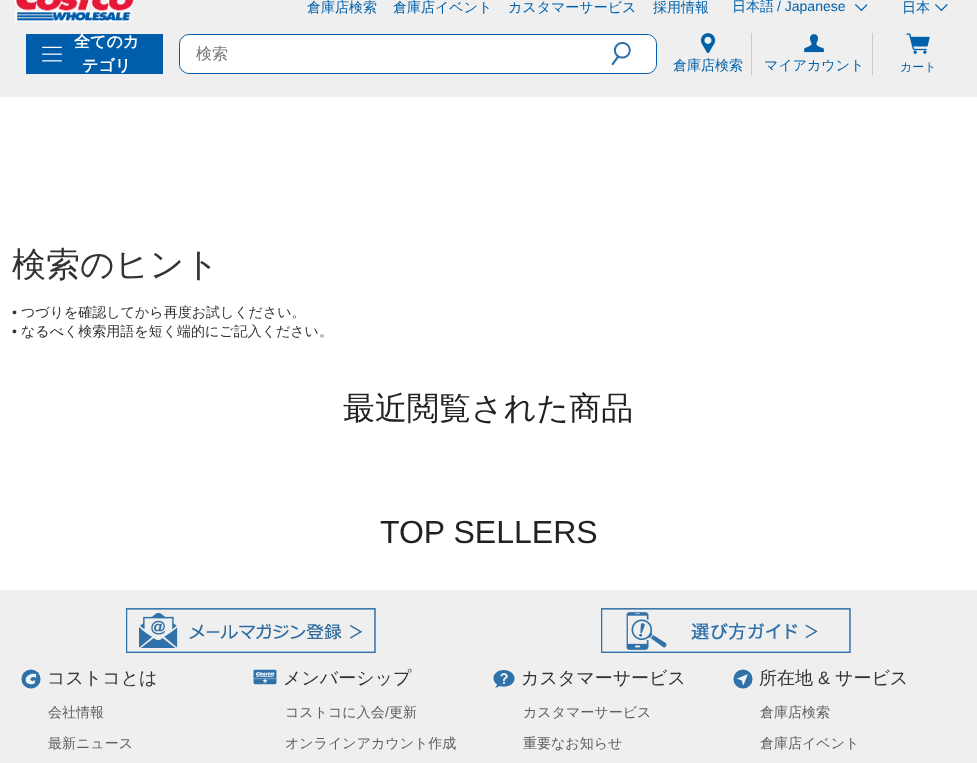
async function draw(canvas) {
	canvas.width = 977;
	canvas.height = 763;
	const c = canvas.getContext('2d');
	c.miterLimit = 4;
	c.fontKerning = 'normal';
	async function loadImage(src) {
		const img = new Image();
		img.src = src;
		await img.decode();
		return img;
	}

	c.fillStyle = '#fff';
	c.fillRect(0, 0, 977, 763);
	c.fillStyle = '#efefef';
	c.fillRect(0, 0, 977, 97);
	c.drawImage(await loadImage('img1.png'), 15, 0, 120, 22);
	c.font = '500 14px WenQuanYi Zen Hei';
	c.fillStyle = '#0060a9';
	for (const [text, x, y] of [
		['倉庫店検索', 307, 12],
		['倉庫店イベント', 393, 12],
		['カスタマーサービス', 508, 12],
		['採用情報', 653, 12],
		['日本語', 732, 11],
	]) {
		c.fillText(text, x, y);
	}
	c.font = '14px Liberation Sans';
	c.fillText('/ Japanese', 777, 11);
	c.drawImage(await loadImage('img2.png'), 855, 4, 12, 8);
	c.font = '500 14px WenQuanYi Zen Hei';
	c.fillText('日本', 902, 12);
	c.drawImage(await loadImage('img3.png'), 935, 4, 13, 8);
	c.fillStyle = '#005dab';
	c.fillRect(26, 34, 137, 40);
	c.drawImage(await loadImage('img4.png'), 42, 46, 20, 16);
	c.font = 'bold 16px WenQuanYi Zen Hei';
	c.fillStyle = '#fff';
	c.fillText('全てのカ', 74, 47);
	c.fillText('テゴリ', 82, 71);
	c.beginPath();
	c.roundRect(179.5, 34.5, 477, 39, 9.5);
	c.fill();
	c.strokeStyle = '#005dab';
	c.stroke();
	c.beginPath();
	c.roundRect(180, 35, 431, 38, 10);
	c.fill();
	c.font = '500 16px WenQuanYi Zen Hei';
	c.fillStyle = '#757575';
	c.fillText('検索', 196, 59);
	c.fillStyle = '#fff';
	c.beginPath();
	c.roundRect(611, 35, 45, 38, 10);
	c.fill();
	c.drawImage(await loadImage('img5.png'), 611, 42, 20, 24);
	c.fillStyle = '#cacaca';
	c.fillRect(751, 33, 1, 42);
	c.drawImage(await loadImage('img6.png'), 700, 33, 16, 21);
	c.font = '500 14px WenQuanYi Zen Hei';
	c.fillStyle = '#0060a9';
	c.fillText('倉庫店検索', 673, 70);
	c.fillStyle = '#cacaca';
	c.fillRect(872, 33, 1, 42);
	c.drawImage(await loadImage('img7.png'), 804, 34, 20, 19);
	c.fillStyle = '#0060a9';
	c.fillText('マイアカウント', 764, 70);
	c.drawImage(await loadImage('img8.png'), 906, 33, 24, 21);
	c.font = '500 12px WenQuanYi Zen Hei';
	c.fillText('カート', 900, 71);
	c.font = '500 34px WenQuanYi Zen Hei';
	c.fillStyle = '#333';
	c.fillText('検索のヒント', 12, 276);
	c.font = '14px Liberation Sans';
	c.fillText('•', 12, 317);
	c.font = '500 14px WenQuanYi Zen Hei';
	c.fillText('つづりを確認してから再度お試しください。', 21, 317);
	c.font = '14px Liberation Sans';
	c.fillText('•', 12, 336);
	c.font = '500 14px WenQuanYi Zen Hei';
	c.fillText('なるべく検索用語を短く端的にご記入ください。', 21, 336);
	c.font = '500 32px WenQuanYi Zen Hei';
	c.fillStyle = '#222';
	c.fillText('最近閲覧された商品', 343, 419);
	c.font = '32px Liberation Sans';
	c.fillText('TOP SELLERS', 380, 543);
	c.fillStyle = '#efefef';
	c.fillRect(0, 590, 977, 173);
	c.drawImage(await loadImage('img9.png'), 126, 608, 250, 45);
	c.drawImage(await loadImage('img10.png'), 601, 608, 250, 45);
	c.drawImage(await loadImage('img11.png'), 21, 669, 20, 20);
	c.font = '500 18px WenQuanYi Zen Hei';
	c.fillStyle = '#333';
	c.fillText('コストコとは', 47, 684);
	c.font = '500 14px WenQuanYi Zen Hei';
	c.fillStyle = '#5f5f5f';
	c.fillText('会社情報', 48, 717);
	c.fillText('最新ニュース', 48, 748);
	c.drawImage(await loadImage('img12.png'), 253, 669, 24, 16);
	c.font = '500 18px WenQuanYi Zen Hei';
	c.fillStyle = '#333';
	c.fillText('メンバーシップ', 283, 684);
	c.font = '500 14px WenQuanYi Zen Hei';
	c.fillStyle = '#5f5f5f';
	c.fillText('コストコに入会', 285, 717);
	c.font = '14px Liberation Sans';
	c.fillText('/', 385, 717);
	c.font = '500 14px WenQuanYi Zen Hei';
	c.fillText('更新', 389, 717);
	c.fillText('オンラインアカウント作成', 285, 748);
	c.drawImage(await loadImage('img13.png'), 493, 670, 22, 18);
	c.font = '500 18px WenQuanYi Zen Hei';
	c.fillStyle = '#333';
	c.fillText('カスタマーサービス', 521, 684);
	c.font = '500 14px WenQuanYi Zen Hei';
	c.fillStyle = '#5f5f5f';
	c.fillText('カスタマーサービス', 523, 717);
	c.fillText('重要なお知らせ', 523, 748);
	c.drawImage(await loadImage('img14.png'), 733, 669, 20, 20);
	c.font = '500 18px WenQuanYi Zen Hei';
	c.fillStyle = '#333';
	c.fillText('所在地', 759, 684);
	c.font = '18px Liberation Sans';
	c.fillText('&', 818, 684);
	c.font = '500 18px WenQuanYi Zen Hei';
	c.fillText('サービス', 835, 684);
	c.font = '500 14px WenQuanYi Zen Hei';
	c.fillStyle = '#5f5f5f';
	c.fillText('倉庫店検索', 760, 717);
	c.fillText('倉庫店イベント', 760, 748);
}

draw(document.querySelector('canvas'));
